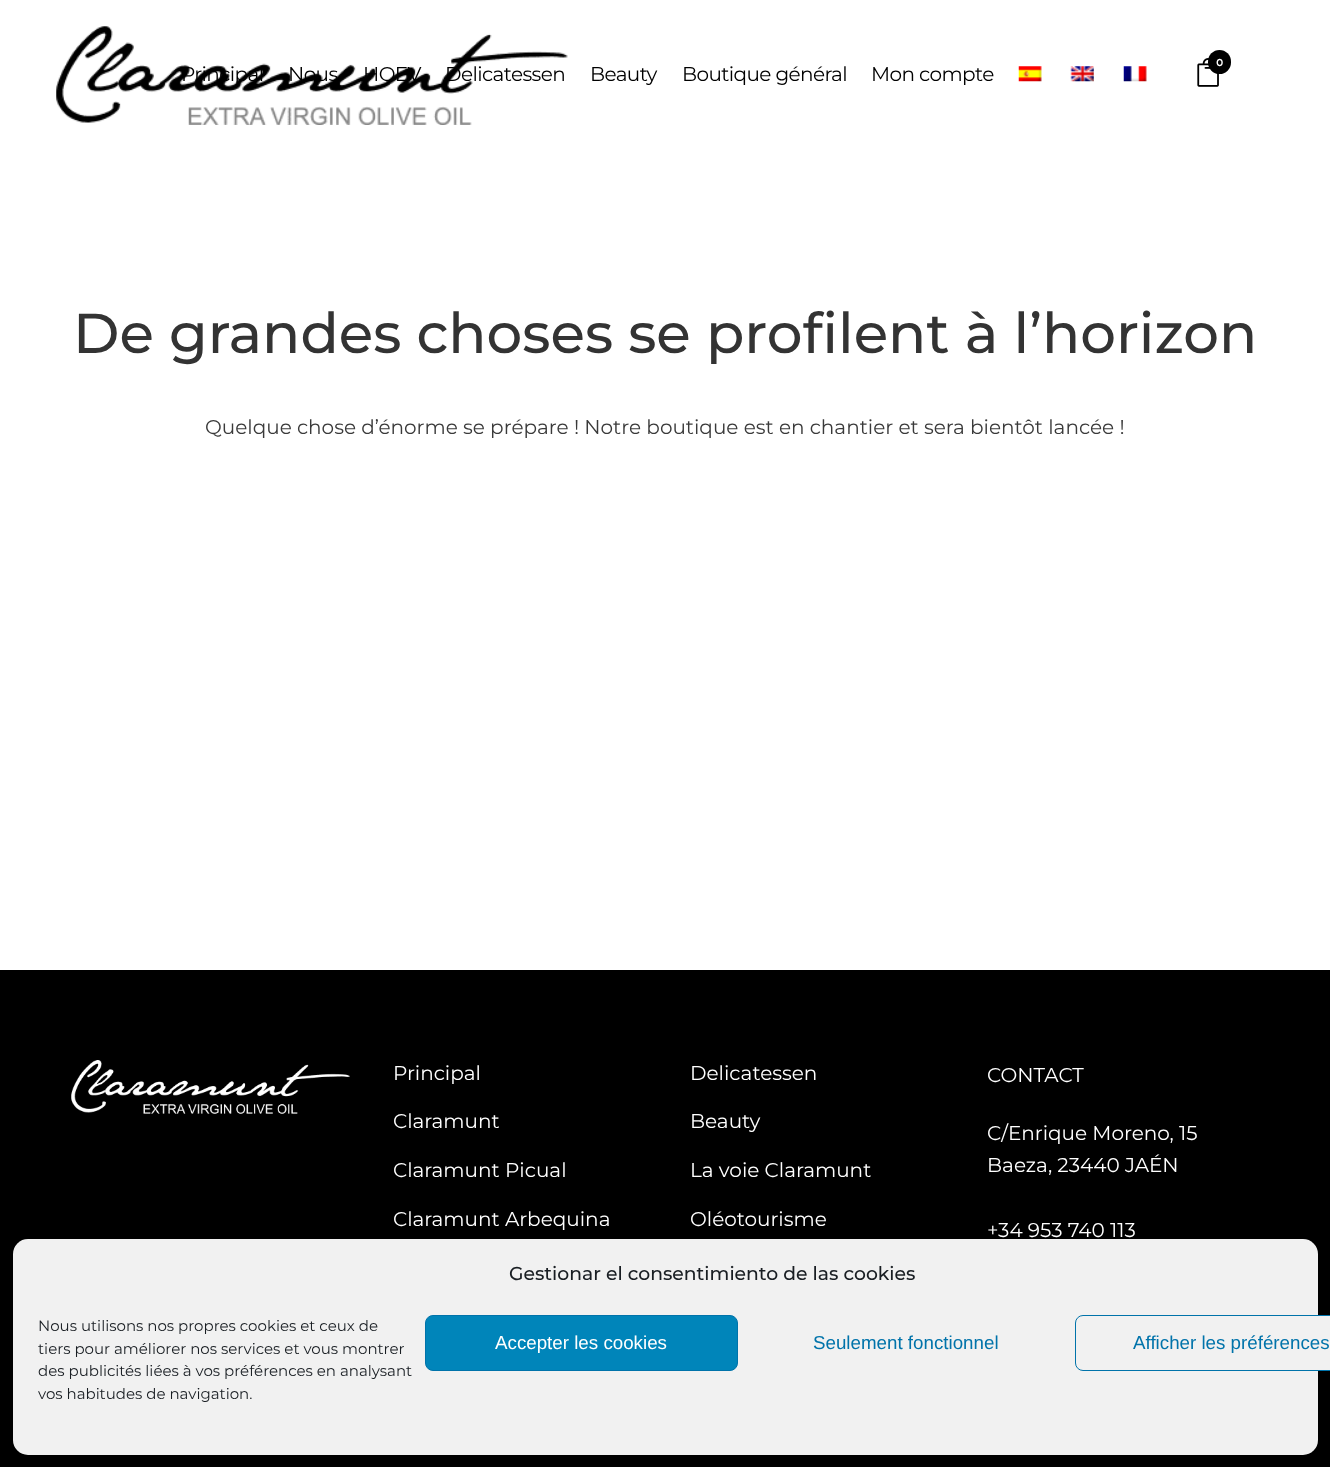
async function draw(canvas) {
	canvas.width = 1330;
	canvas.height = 1467;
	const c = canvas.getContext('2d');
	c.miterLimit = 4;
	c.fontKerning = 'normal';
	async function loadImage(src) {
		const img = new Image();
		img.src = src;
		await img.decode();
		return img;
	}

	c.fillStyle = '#fff';
	c.fillRect(0, 0, 1330, 1467);
	c.drawImage(await loadImage('img1.png'), 56, 26, 512, 99);
	c.drawImage(await loadImage('img2.png'), 1197, 58, 22, 29);
	c.fillStyle = '#000';
	c.beginPath();
	c.roundRect(1208, 50, 23, 24, 11.5);
	c.fill();
	c.font = '600 12px Raleway';
	c.fillStyle = '#fff';
	c.fillText('0', 1216, 66);
	c.letterSpacing = '-0.6px';
	c.font = '20px Montserrat';
	c.fillStyle = '#000';
	for (const [text, x, y] of [
		['Principal', 181, 81],
		['Nous', 288, 81],
		['HOEV', 363, 81],
		['Delicatessen', 445, 81],
		['Beauty', 590, 81],
		['Boutique général', 682, 81],
		['Mon compte', 871, 81],
	]) {
		c.fillText(text, x, y);
	}
	c.drawImage(await loadImage('img3.png'), 1018, 66, 24, 16);
	c.drawImage(await loadImage('img4.png'), 1070, 66, 24, 16);
	c.drawImage(await loadImage('img5.png'), 1123, 66, 24, 16);
	c.letterSpacing = '0px';
	c.font = '500 56.25px Montserrat';
	c.fillStyle = '#333';
	c.fillText('De grandes choses se profilent à l’horizon', 73, 353);
	c.font = '20px Montserrat';
	c.fillStyle = '#3a3a3a';
	c.fillText('Quelque chose d’énorme se prépare ! Notre boutique est en chantier et sera bientôt lancée !', 205, 434);
	c.fillStyle = '#000';
	c.fillRect(0, 970, 1330, 497);
	c.drawImage(await loadImage('img6.png'), 71, 1060, 279, 54);
	c.fillStyle = '#fff';
	for (const [text, x, y] of [
		['Principal', 393, 1080],
		['Claramunt', 393, 1128],
		['Claramunt Picual', 393, 1177],
		['Claramunt Arbequina', 393, 1226],
		['Delicatessen', 690, 1080],
		['Beauty', 690, 1128],
		['La voie Claramunt', 690, 1177],
		['Oléotourisme', 690, 1226],
		['CONTACT', 987, 1082],
		['C/Enrique Moreno, 15', 987, 1140],
		['Baeza, 23440 JAÉN', 987, 1172],
		['+34 953 740 113', 987, 1237],
	]) {
		c.fillText(text, x, y);
	}
	c.fillStyle = '#f1f1f1';
	c.beginPath();
	c.roundRect(13, 1239, 1305, 216, 15);
	c.fill();
	c.font = '500 18.75px Montserrat';
	c.fillStyle = '#191e23';
	c.fillText('Gestionar el consentimiento de las cookies', 509, 1280);
	c.font = '15px Montserrat';
	for (const [text, x, y] of [
		['Nous utilisons nos propres cookies et ceux de', 38, 1331],
		['tiers pour améliorer nos services et vous montrer', 38, 1354],
		['des publicités liées à vos préférences en analysant', 38, 1376],
		['vos habitudes de navigation.', 38, 1399],
	]) {
		c.fillText(text, x, y);
	}
	c.fillStyle = '#0085ba';
	c.beginPath();
	c.roundRect(425.5, 1315.5, 312, 55, 7.5);
	c.fill();
	c.strokeStyle = '#0073aa';
	c.stroke();
	c.font = '18.75px Liberation Sans';
	c.fillStyle = '#fff';
	c.fillText('Accepter les cookies', 495, 1349);
	c.fillStyle = '#0073aa';
	c.fillText('Seulement fonctionnel', 813, 1349);
	c.fillStyle = '#f1f1f1';
	c.beginPath();
	c.roundRect(1075.5, 1315.5, 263, 55, 7.5);
	c.fill();
	c.stroke();
	c.fillStyle = '#0073aa';
	c.fillText('Afficher les préférences', 1133, 1349);
}

draw(document.querySelector('canvas'));
